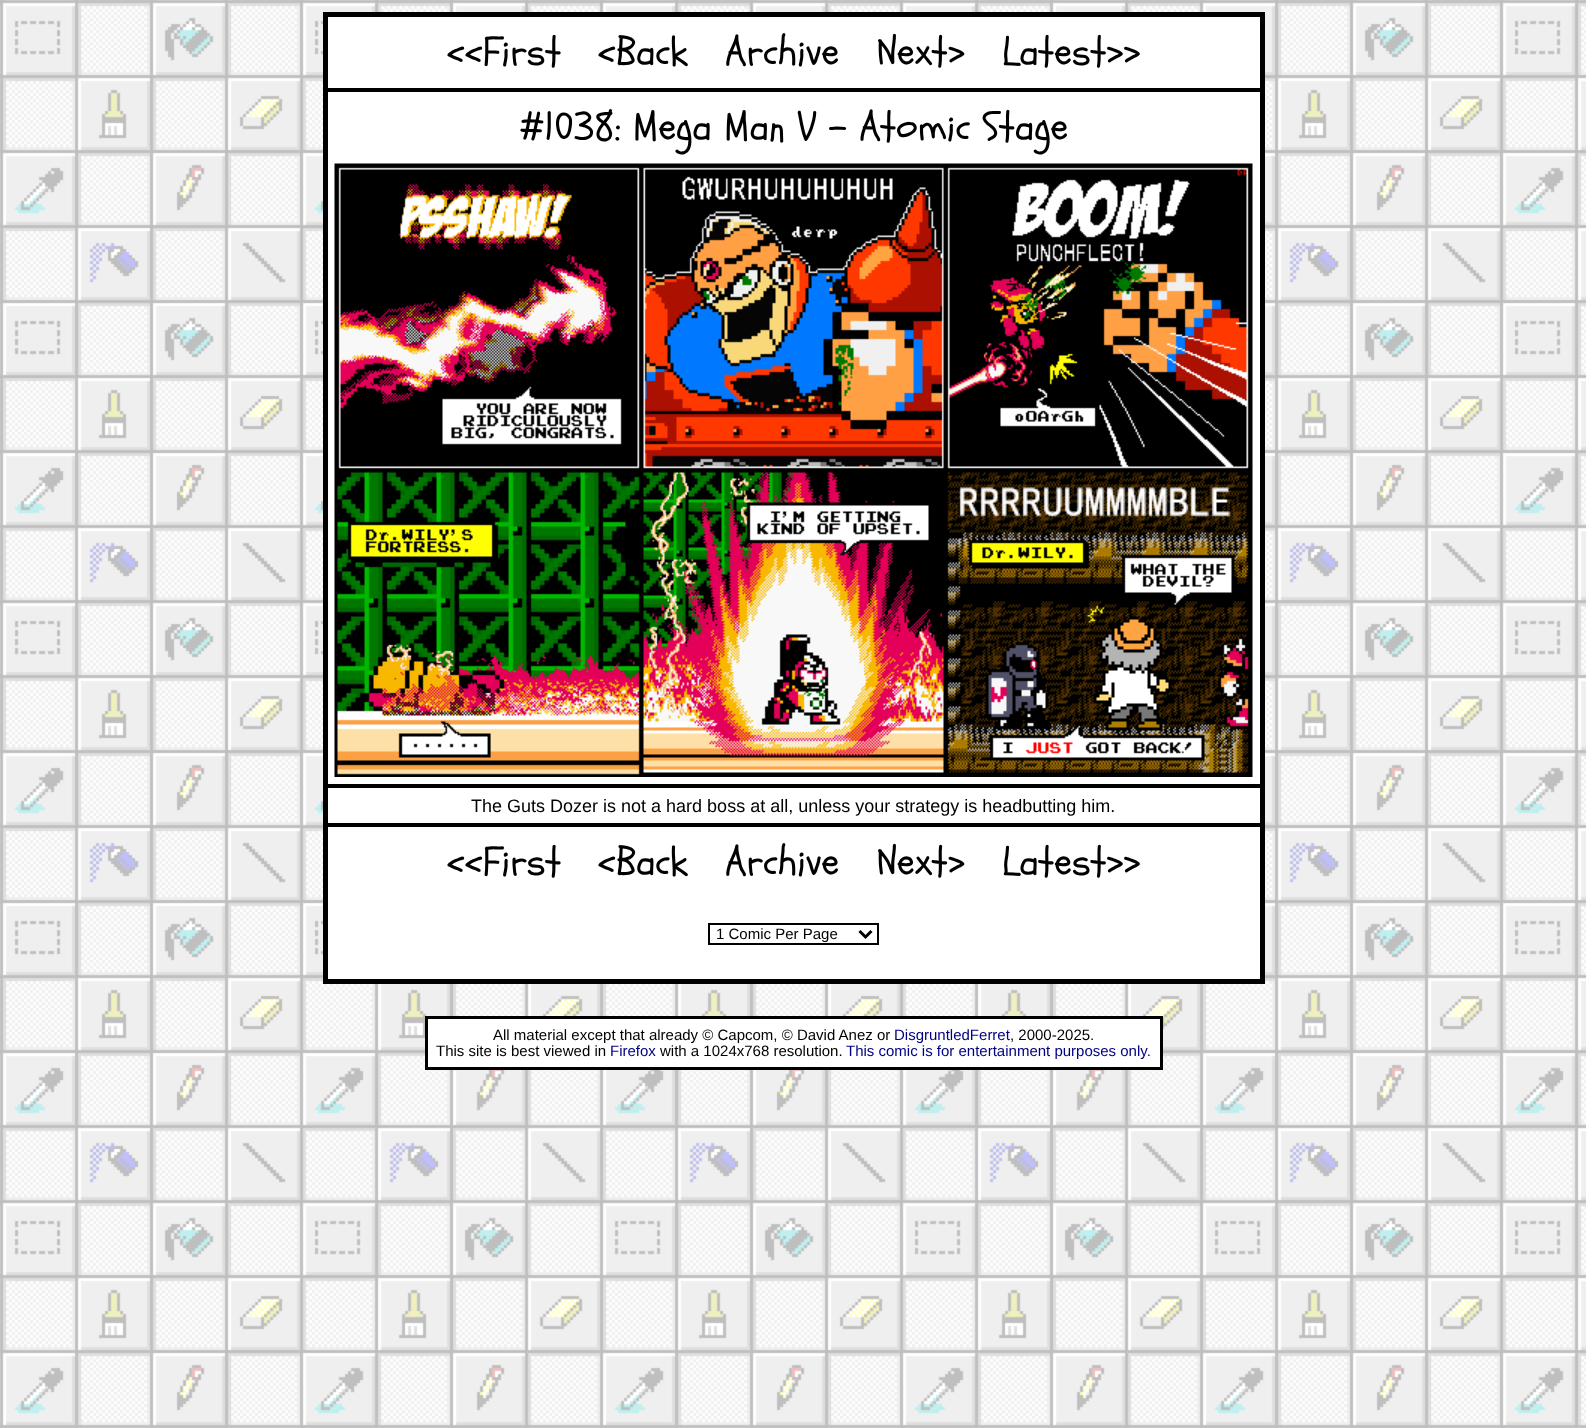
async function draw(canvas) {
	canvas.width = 1586;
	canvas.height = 1428;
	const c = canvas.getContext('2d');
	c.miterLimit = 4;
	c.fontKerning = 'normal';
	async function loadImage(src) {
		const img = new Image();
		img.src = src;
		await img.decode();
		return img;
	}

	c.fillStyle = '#fff';
	c.fillRect(0, 0, 1586, 1428);
	c.drawImage(await loadImage('img1.png'), 0, 0, 1586, 1428);
	c.fillRect(328, 17, 932, 962);
	c.strokeStyle = '#000';
	c.lineWidth = 3;
	c.strokeRect(324.5, 13.5, 939, 969);
	c.lineWidth = 2;
	c.strokeRect(327, 16, 934, 73);
	c.font = '40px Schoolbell';
	c.fillStyle = '#000';
	for (const [text, x, y] of [
		['<<First', 447, 65],
		['<Back', 598, 65],
		['Archive', 725, 65],
		['Next>', 877, 65],
		['Latest>>', 1002, 65],
	]) {
		c.fillText(text, x, y);
	}
	c.strokeRect(327, 91, 934, 694);
	c.fillText('#1038: Mega Man V - Atomic Stage', 520, 140);
	c.drawImage(await loadImage('img2.png'), 334, 163, 919, 614);
	c.strokeRect(327, 787, 934, 37);
	c.font = '18px Liberation Sans';
	c.fillText('The Guts Dozer is not a hard boss at all, unless your strategy is headbutting him.', 471, 812);
	c.strokeRect(327, 826, 934, 154);
	c.font = '40px Schoolbell';
	for (const [text, x, y] of [
		['<<First', 447, 875],
		['<Back', 598, 875],
		['Archive', 725, 875],
		['Next>', 877, 875],
		['Latest>>', 1002, 875],
	]) {
		c.fillText(text, x, y);
	}
	c.strokeRect(709, 924, 169, 20);
	c.beginPath();
	c.moveTo(859.5, 931);
	c.lineTo(865.5, 937);
	c.lineTo(871.5, 931);
	c.lineWidth = 3;
	c.stroke();
	c.font = '15px Liberation Sans';
	c.fillText('1 Comic Per Page', 716, 939);
	c.fillStyle = '#fff';
	c.beginPath();
	c.rect(426.5, 1017.5, 735, 51);
	c.fill();
	c.stroke();
	c.fillStyle = '#000';
	c.fillText('All material except that already © Capcom, © David Anez or', 493, 1040);
	c.fillStyle = '#000080';
	c.fillText('DisgruntledFerret', 894, 1040);
	c.fillStyle = '#000';
	c.fillText(', 2000-2025.', 1010, 1040);
	c.fillText('This site is best viewed in', 436, 1056);
	c.fillStyle = '#000080';
	c.fillText('Firefox', 610, 1056);
	c.fillStyle = '#000';
	c.fillText('with a 1024x768 resolution.', 660, 1056);
	c.fillStyle = '#000080';
	c.fillText('This comic is for entertainment purposes only.', 846, 1056);
}

draw(document.querySelector('canvas'));
